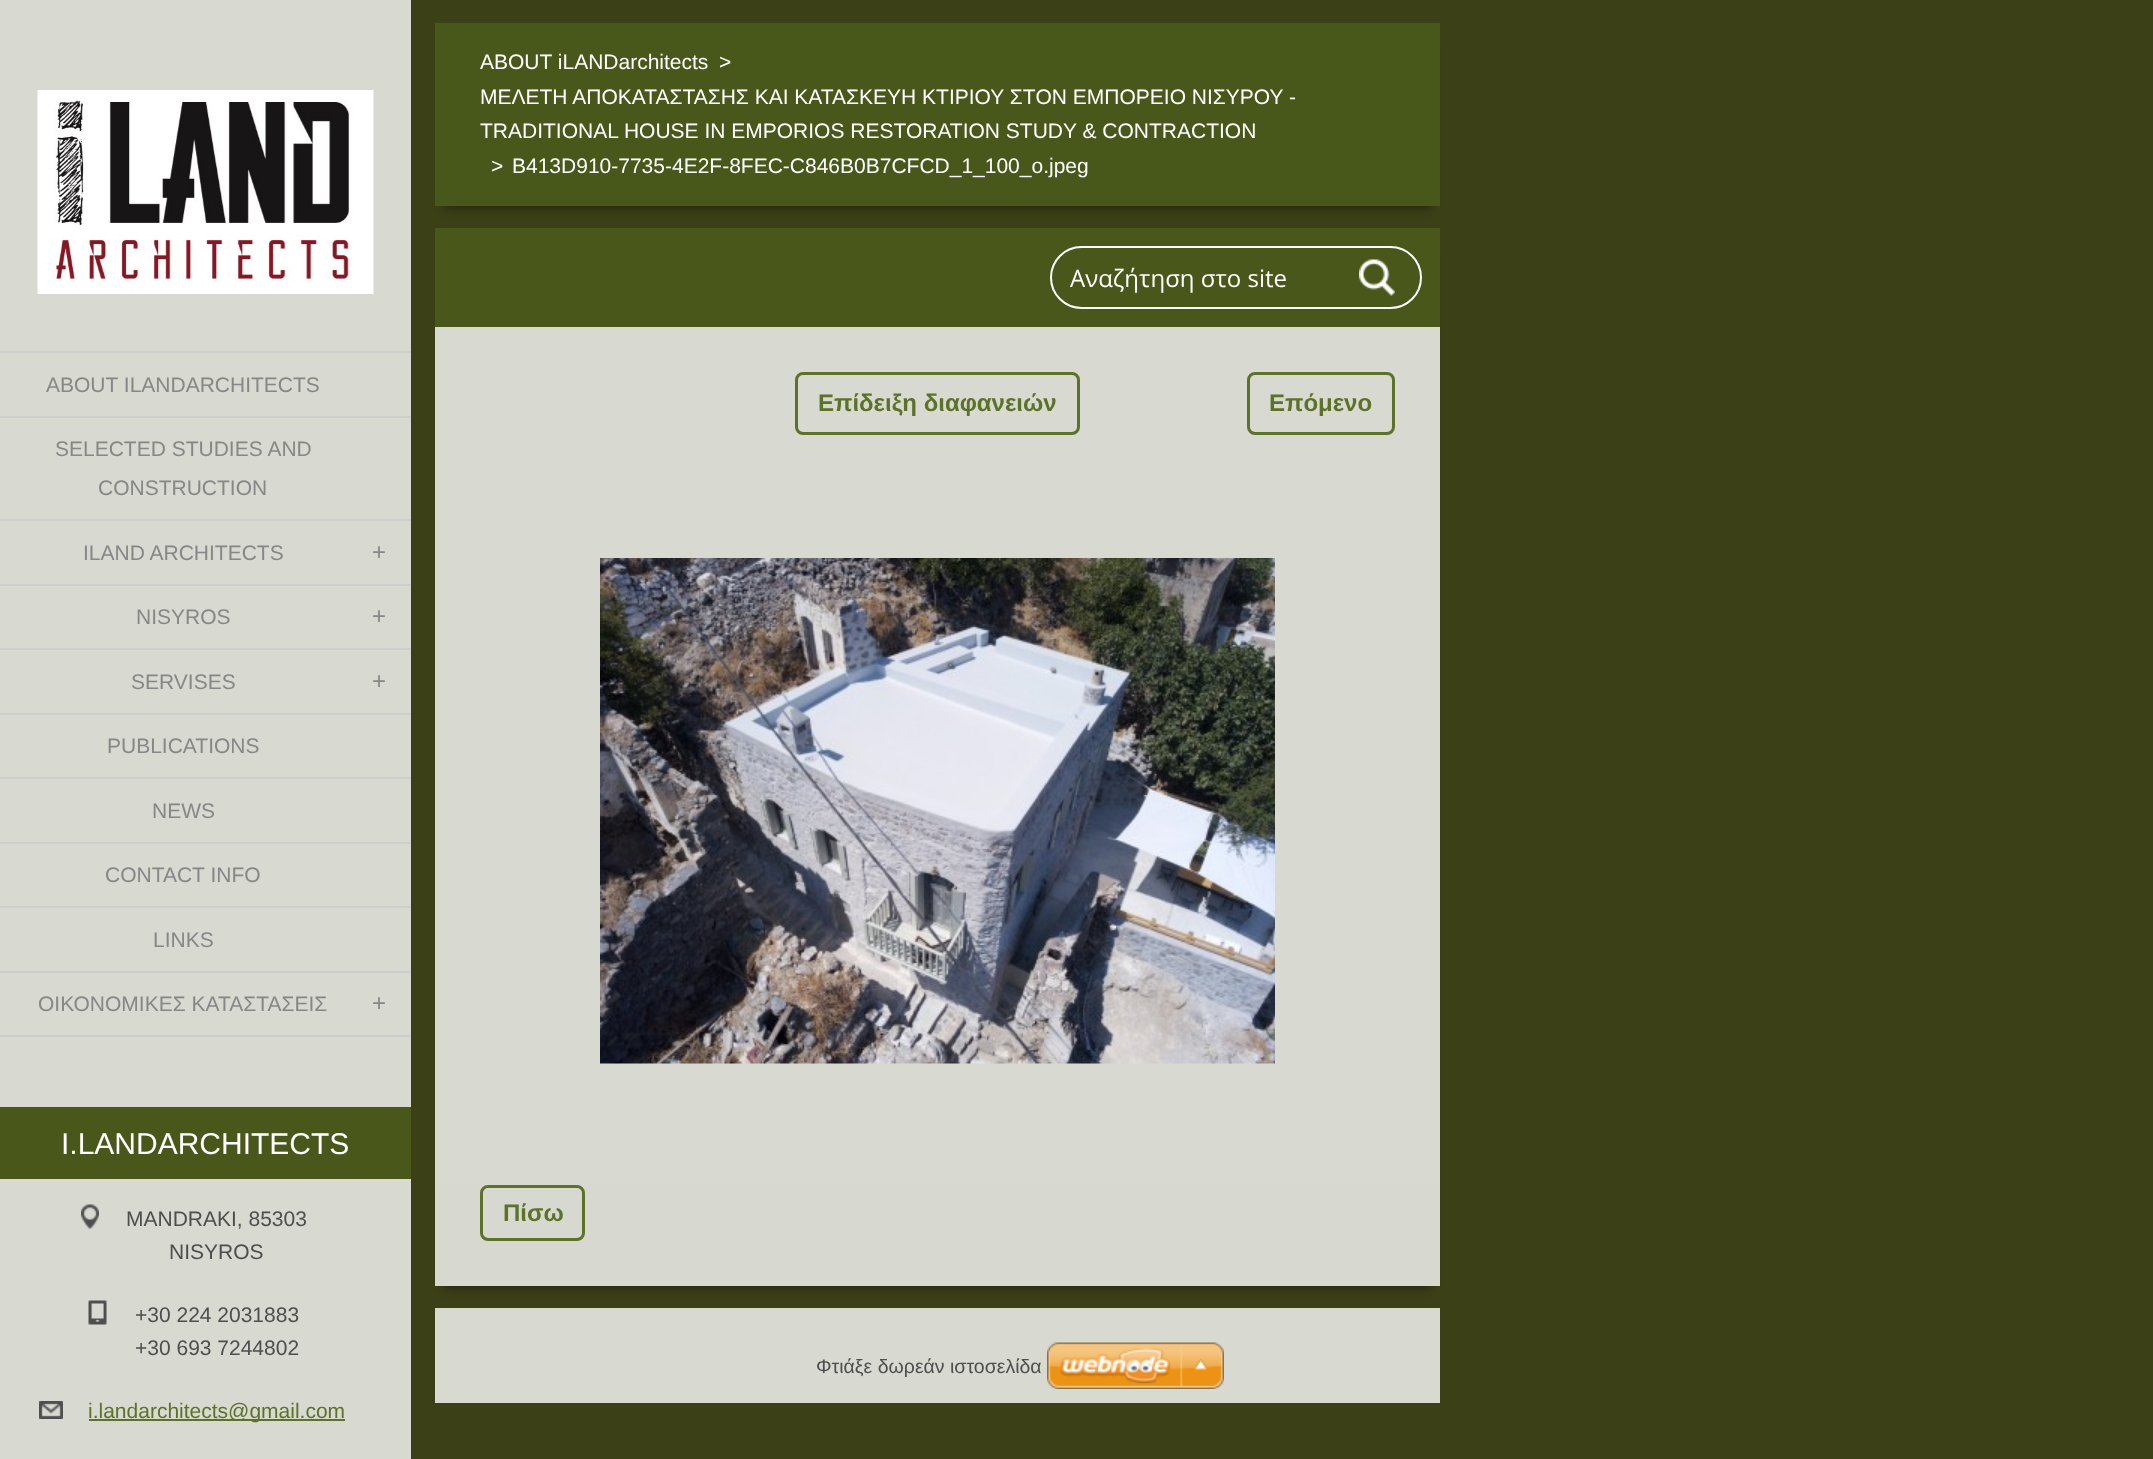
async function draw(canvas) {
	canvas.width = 2153;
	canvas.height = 1459;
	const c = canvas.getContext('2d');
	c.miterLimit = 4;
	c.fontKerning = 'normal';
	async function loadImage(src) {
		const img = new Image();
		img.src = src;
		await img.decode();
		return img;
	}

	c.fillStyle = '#3b4017';
	c.fillRect(0, 0, 2153, 1459);
	c.fillStyle = '#d8d9d1';
	c.fillRect(0, 0, 411, 351);
	c.drawImage(await loadImage('img1.png'), 37, 90, 337, 204);
	for (const [x, y, w, h, color] of [
		[0, 353, 411, 682, '#d8d9d1'],
		[0, 351, 411, 2, '#cecece'],
		[0, 416, 411, 2, '#cecece'],
	]) {
		c.fillStyle = color;
		c.fillRect(x, y, w, h);
	}
	c.font = '21px Liberation Sans';
	c.fillStyle = '#878787';
	c.fillText('ABOUT ILANDARCHITECTS', 46, 392);
	c.fillStyle = '#cecece';
	c.fillRect(0, 519, 411, 2);
	c.fillStyle = '#878787';
	c.fillText('SELECTED STUDIES AND', 55, 456);
	c.fillText('CONSTRUCTION', 98, 495);
	c.fillStyle = '#cecece';
	c.fillRect(0, 584, 411, 2);
	c.fillStyle = '#878787';
	c.fillText('ILAND ARCHITECTS', 83, 560);
	c.font = '24px Liberation Sans';
	c.fillText('+', 372, 560);
	c.fillStyle = '#cecece';
	c.fillRect(0, 648, 411, 2);
	c.font = '21px Liberation Sans';
	c.fillStyle = '#878787';
	c.fillText('NISYROS', 136, 624);
	c.font = '24px Liberation Sans';
	c.fillText('+', 372, 624);
	c.fillStyle = '#cecece';
	c.fillRect(0, 713, 411, 2);
	c.font = '21px Liberation Sans';
	c.fillStyle = '#878787';
	c.fillText('SERVISES', 131, 689);
	c.font = '24px Liberation Sans';
	c.fillText('+', 372, 689);
	c.fillStyle = '#cecece';
	c.fillRect(0, 777, 411, 2);
	c.font = '21px Liberation Sans';
	c.fillStyle = '#878787';
	c.fillText('PUBLICATIONS', 107, 753);
	c.fillStyle = '#cecece';
	c.fillRect(0, 842, 411, 2);
	c.fillStyle = '#878787';
	c.fillText('NEWS', 152, 818);
	c.fillStyle = '#cecece';
	c.fillRect(0, 906, 411, 2);
	c.fillStyle = '#878787';
	c.fillText('CONTACT INFO', 105, 882);
	c.fillStyle = '#cecece';
	c.fillRect(0, 971, 411, 2);
	c.fillStyle = '#878787';
	c.fillText('LINKS', 153, 947);
	c.fillStyle = '#cecece';
	c.fillRect(0, 1035, 411, 2);
	c.fillStyle = '#878787';
	c.fillText('ΟΙΚΟΝΟΜΙΚΕΣ ΚΑΤΑΣΤΑΣΕΙΣ', 38, 1011);
	c.font = '24px Liberation Sans';
	c.fillText('+', 372, 1011);
	c.fillStyle = '#d8d9d1';
	c.fillRect(0, 1037, 411, 70);
	c.fillStyle = '#49571b';
	c.fillRect(0, 1107, 411, 72);
	c.font = '30px Liberation Sans';
	c.fillStyle = '#fff';
	c.fillText('I.LANDARCHITECTS', 61, 1154);
	c.fillStyle = '#d8d9d1';
	c.fillRect(0, 1179, 411, 280);
	c.drawImage(await loadImage('img2.png'), 81, 1204, 18, 25);
	c.font = '21px Liberation Sans';
	c.fillStyle = '#4e4e4e';
	c.fillText('MANDRAKI, 85303', 126, 1226);
	c.fillText('NISYROS', 169, 1259);
	c.drawImage(await loadImage('img3.png'), 88, 1300, 19, 25);
	c.fillText('+30 224 2031883', 135, 1322);
	c.fillText('+30 693 7244802', 135, 1355);
	c.drawImage(await loadImage('img4.png'), 39, 1401, 24, 18);
	c.fillStyle = '#5c7228';
	c.fillRect(89, 1419, 256, 2);
	c.fillText('i.landarchitects@gmail.com', 88, 1418);
	c.save();
	c.beginPath();
	c.moveTo(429, 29);
	c.lineTo(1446, 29);
	c.lineTo(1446, 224);
	c.lineTo(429, 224);
	c.closePath();
	c.moveTo(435, 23);
	c.lineTo(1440, 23);
	c.lineTo(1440, 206);
	c.lineTo(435, 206);
	c.closePath();
	c.clip('evenodd');
	c.fillStyle = '#00000059';
	c.filter = 'blur(4.5px)';
	c.beginPath();
	c.rect(444, 44, 987, 165);
	c.fill();
	c.filter = 'none';
	c.restore();
	c.fillStyle = '#566e1e80';
	c.fillRect(435, 23, 1005, 183);
	c.fillStyle = '#fff';
	for (const [text, x, y] of [
		['ABOUT iLANDarchitects', 480, 69],
		['>', 719, 69],
		['ΜΕΛΕΤΗ ΑΠΟΚΑΤΑΣΤΑΣΗΣ ΚΑΙ ΚΑΤΑΣΚΕΥΗ ΚΤΙΡΙΟΥ ΣΤON ΕΜΠΟΡΕΙΟ ΝΙΣΥΡΟΥ -', 480, 104],
		['TRADITIONAL HOUSE IN EMPORIOS RESTORATION STUDY & CONTRACTION', 480, 138],
		['>', 491, 173],
		['B413D910-7735-4E2F-8FEC-C846B0B7CFCD_1_100_o.jpeg', 512, 173],
	]) {
		c.fillText(text, x, y);
	}
	c.save();
	c.beginPath();
	c.moveTo(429, 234);
	c.lineTo(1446, 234);
	c.lineTo(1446, 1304);
	c.lineTo(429, 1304);
	c.closePath();
	c.moveTo(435, 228);
	c.lineTo(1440, 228);
	c.lineTo(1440, 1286);
	c.lineTo(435, 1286);
	c.closePath();
	c.clip('evenodd');
	c.fillStyle = '#00000059';
	c.filter = 'blur(4.5px)';
	c.beginPath();
	c.rect(444, 249, 987, 1040);
	c.fill();
	c.filter = 'none';
	c.restore();
	c.fillStyle = '#49571b';
	c.fillRect(435, 228, 1005, 99);
	c.beginPath();
	c.roundRect(1051, 247, 370, 61, 30.5);
	c.strokeStyle = '#fff';
	c.lineWidth = 2;
	c.stroke();
	c.font = '24px Open Sans';
	c.fillStyle = '#fff';
	c.fillText('Αναζήτηση στο site', 1070, 287);
	c.drawImage(await loadImage('img5.png'), 1359, 259, 36, 37);
	c.fillStyle = '#d8d9d1';
	c.fillRect(435, 327, 1005, 858);
	c.beginPath();
	c.roundRect(796.5, 373.5, 282, 60, 6.5);
	c.strokeStyle = '#5c7228';
	c.lineWidth = 3;
	c.stroke();
	c.font = 'bold 24px Liberation Sans';
	c.fillStyle = '#5c7228';
	c.fillText('Επίδειξη διαφανειών', 818, 411);
	c.beginPath();
	c.roundRect(1248.5, 373.5, 145, 60, 6.5);
	c.stroke();
	c.fillText('Επόμενο', 1269, 411);
	c.drawImage(await loadImage('img6.png'), 600, 558, 675, 506);
	c.fillStyle = '#ffffffcc';
	c.fillRect(435, 1185, 1005, 101);
	c.beginPath();
	c.roundRect(481.5, 1186.5, 102, 53, 6.5);
	c.stroke();
	c.fillStyle = '#5c7228';
	c.fillText('Πίσω', 503, 1221);
	c.fillStyle = '#d8d9d1';
	c.fillRect(435, 1308, 1005, 95);
	c.font = '19.5px Liberation Sans';
	c.fillStyle = '#4e4e4e';
	c.fillText('Φτιάξε δωρεάν ιστοσελίδα', 816, 1373);
	c.drawImage(await loadImage('img7.png'), 1047, 1342, 177, 47);
}

draw(document.querySelector('canvas'));
